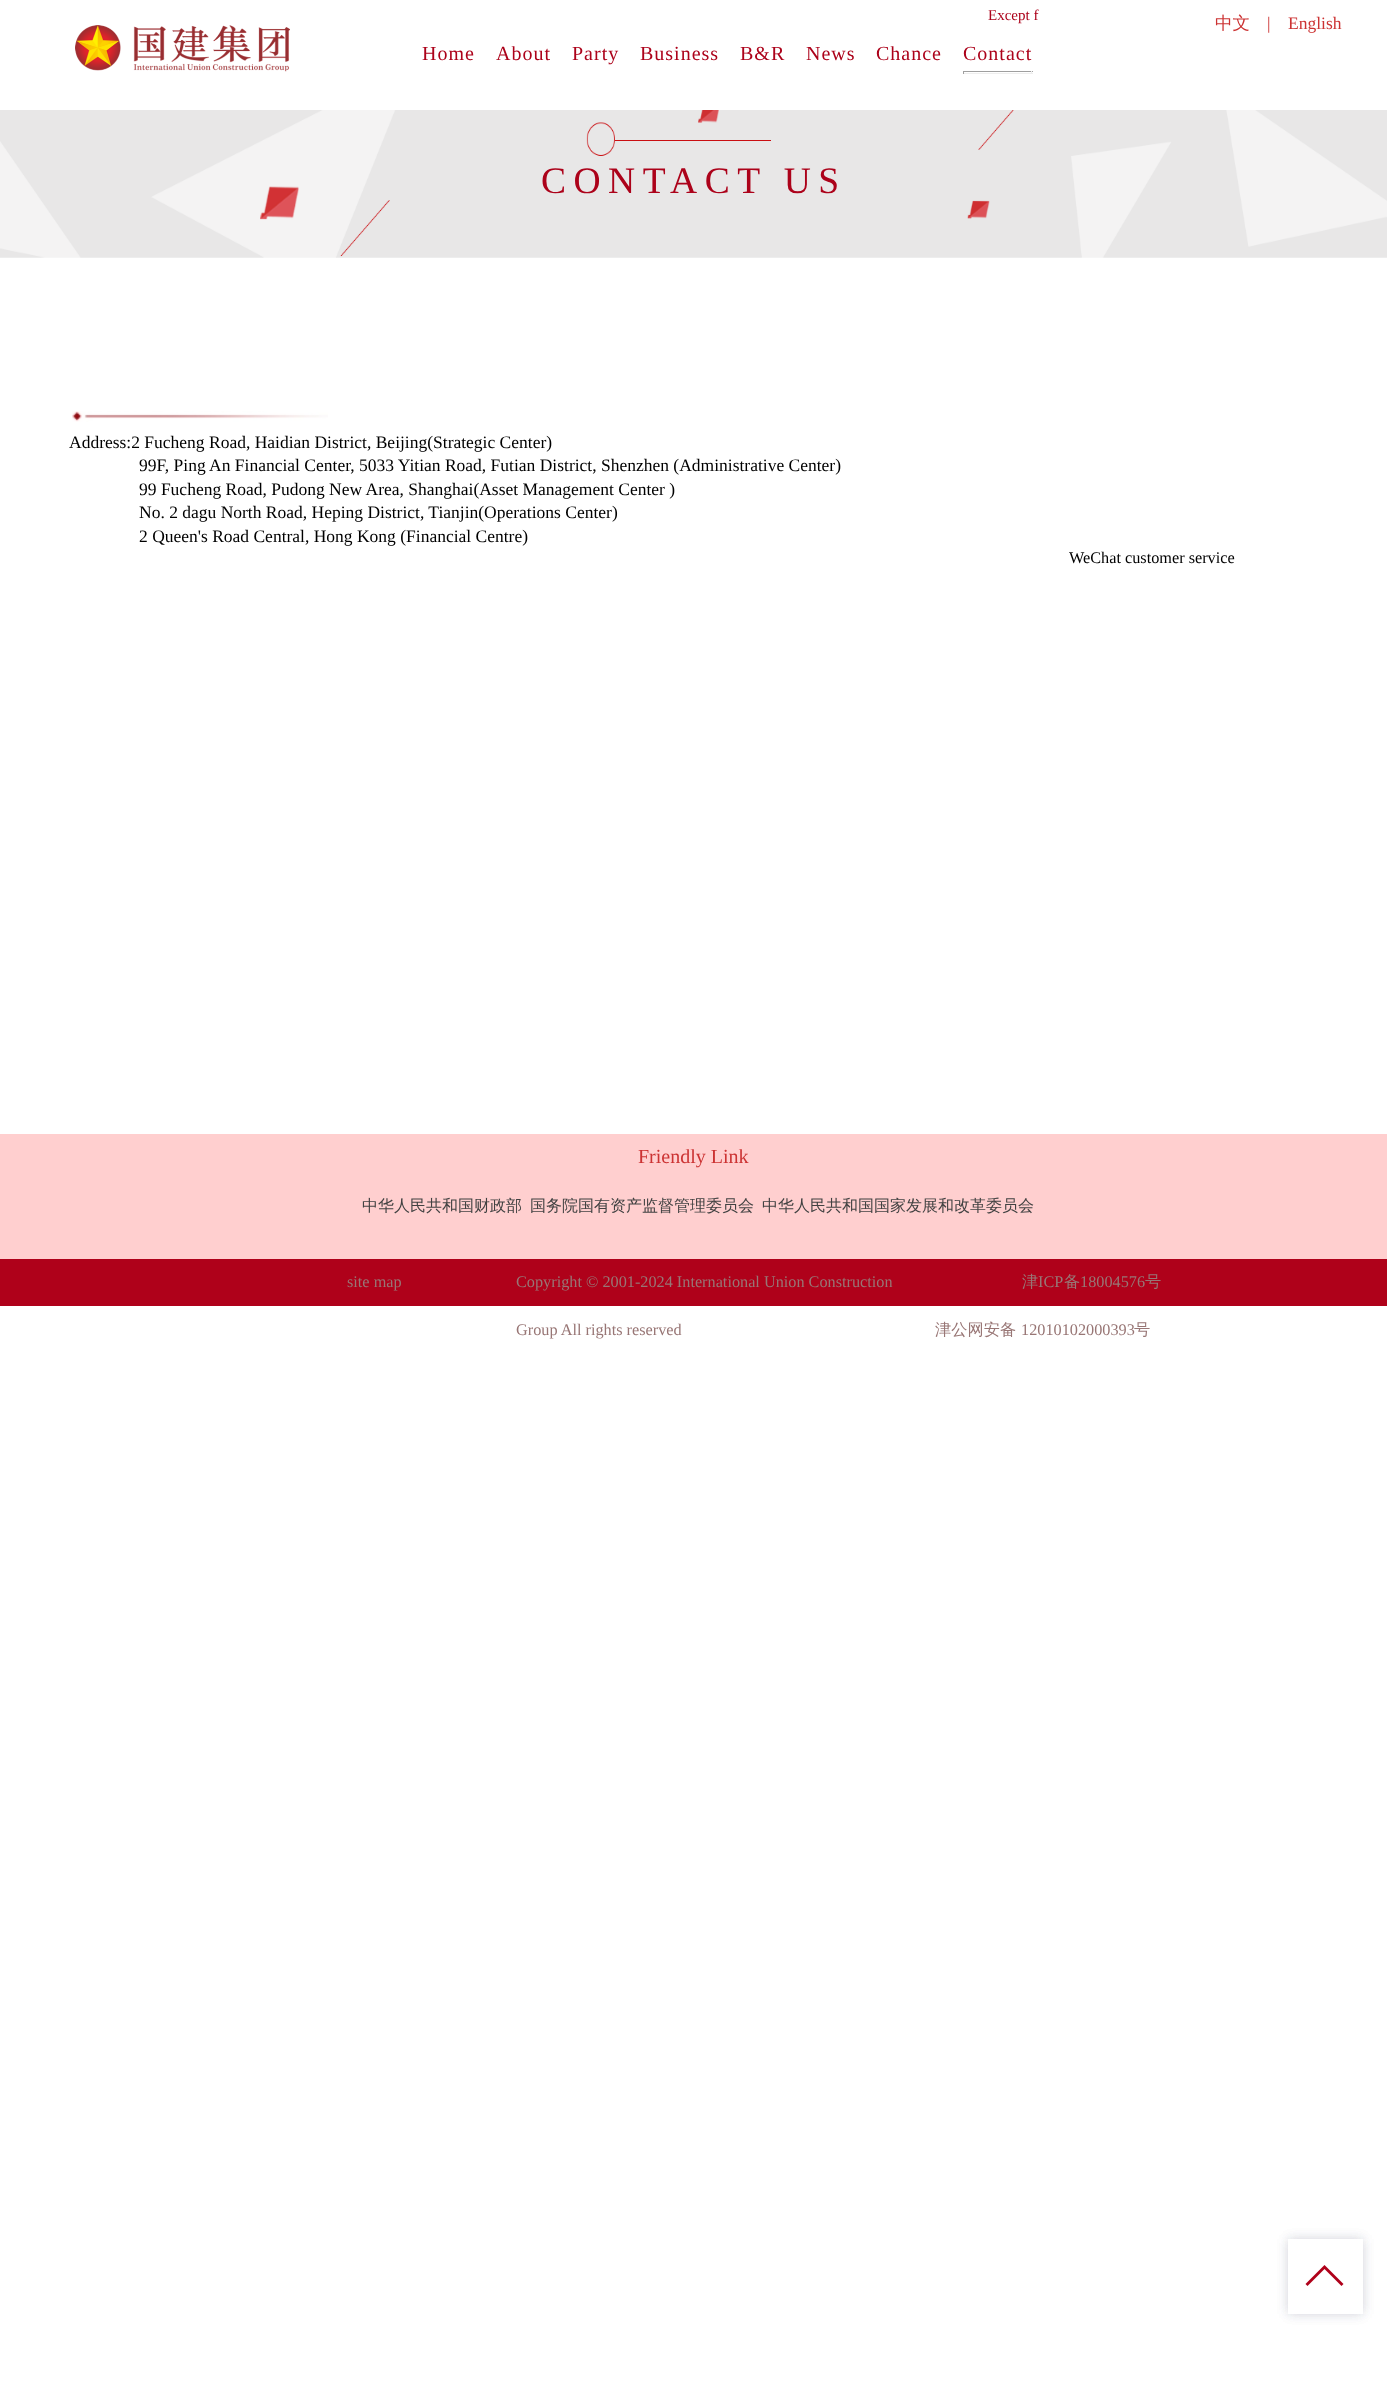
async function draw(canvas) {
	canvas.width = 1387;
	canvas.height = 2388;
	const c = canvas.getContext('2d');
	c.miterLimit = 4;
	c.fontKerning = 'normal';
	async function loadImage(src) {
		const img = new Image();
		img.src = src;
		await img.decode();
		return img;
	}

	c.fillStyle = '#fff';
	c.fillRect(0, 0, 1387, 2388);
	c.drawImage(await loadImage('img1.png'), 0, 110, 1387, 148);
	c.font = '15px Liberation Serif';
	c.fillStyle = '#ac021a';
	c.fillText('Except f', 988, 20);
	c.drawImage(await loadImage('img2.png'), 75, 25, 215, 47);
	c.letterSpacing = '1px';
	c.font = '20px Liberation Serif';
	for (const [text, x, y] of [
		['Home', 422, 60],
		['About', 496, 60],
		['Party', 572, 60],
		['Business', 640, 60],
		['B&R', 740, 60],
		['News', 806, 60],
		['Chance', 876, 60],
		['Contact', 963, 60],
	]) {
		c.fillText(text, x, y);
	}
	for (const [x, y, w, h, color] of [
		[963, 71, 70, 1, '#9f9f9f'],
		[1031, 71, 1, 3, '#eee'],
		[963, 73, 70, 1, '#eee'],
		[963, 71, 1, 3, '#9f9f9f'],
	]) {
		c.fillStyle = color;
		c.fillRect(x, y, w, h);
	}
	c.letterSpacing = '0px';
	c.font = '500 17.5px WenQuanYi Zen Hei';
	c.fillStyle = '#c33';
	c.fillText('中文', 1215, 29);
	c.font = '17.5px Liberation Serif';
	c.fillText('|', 1267, 29);
	c.fillText('English', 1288, 29);
	c.drawImage(await loadImage('img3.png'), 0, 110, 1387, 148);
	c.letterSpacing = '7.5px';
	c.font = '37.5px Liberation Serif';
	c.fillStyle = '#ac021a';
	c.fillText('CONTACT US', 541, 193);
	c.drawImage(await loadImage('img4.png'), 72, 411, 256, 11);
	c.letterSpacing = '0px';
	c.font = '17.5px Liberation Serif';
	c.fillStyle = '#000';
	for (const [text, x, y] of [
		['Address:2 Fucheng Road, Haidian District, Beijing(Strategic Center)', 69, 448],
		['99F, Ping An Financial Center, 5033 Yitian Road, Futian District, Shenzhen (Administrative Center)', 139, 471],
		['99 Fucheng Road, Pudong New Area, Shanghai(Asset Management Center )', 139, 495],
		['No. 2 dagu North Road, Heping District, Tianjin(Operations Center)', 139, 518],
		['2 Queen\'s Road Central, Hong Kong (Financial Centre)', 139, 542],
	]) {
		c.fillText(text, x, y);
	}
	c.font = '16.25px Liberation Serif';
	c.fillText('WeChat customer service', 1069, 563);
	c.fillStyle = '#ffcfcf';
	c.fillRect(0, 1134, 1387, 125);
	c.font = '20px Liberation Serif';
	c.fillStyle = '#c33';
	c.fillText('Friendly Link', 638, 1163);
	c.font = '500 16px WenQuanYi Zen Hei';
	c.fillStyle = '#424242';
	for (const [text, x, y] of [
		['中华人民共和国财政部', 362, 1211],
		['国务院国有资产监督管理委员会', 530, 1211],
		['中华人民共和国国家发展和改革委员会', 762, 1211],
	]) {
		c.fillText(text, x, y);
	}
	c.fillStyle = '#af011a';
	c.fillRect(0, 1259, 1387, 47);
	c.font = '16.25px Liberation Serif';
	c.fillStyle = '#987675';
	for (const [text, x, y] of [
		['site map', 347, 1287],
		['Copyright © 2001-2024 International Union Construction', 516, 1287],
		['Group All rights reserved', 516, 1335],
	]) {
		c.fillText(text, x, y);
	}
	c.font = '500 16.25px WenQuanYi Zen Hei';
	c.fillText('津', 1022, 1287);
	c.font = '16.25px Liberation Serif';
	c.fillText('ICP', 1038, 1287);
	c.font = '500 16.25px WenQuanYi Zen Hei';
	c.fillText('备', 1064, 1287);
	c.font = '16.25px Liberation Serif';
	c.fillText('18004576', 1080, 1287);
	c.font = '500 16.25px WenQuanYi Zen Hei';
	c.fillText('号', 1145, 1287);
	c.fillText('津公网安备', 935, 1335);
	c.font = '16.25px Liberation Serif';
	c.fillText('12010102000393', 1021, 1335);
	c.font = '500 16.25px WenQuanYi Zen Hei';
	c.fillText('号', 1134, 1335);
	c.fillStyle = '#1422431a';
	c.filter = 'blur(6px)';
	c.beginPath();
	c.rect(1288, 2239, 75, 75);
	c.fill();
	c.filter = 'none';
	c.filter = 'blur(6px)';
	c.beginPath();
	c.rect(1288, 2239, 75, 75);
	c.fill();
	c.filter = 'none';
	c.fillStyle = '#fff';
	c.fillRect(1288, 2239, 75, 75);
	c.fillStyle = '#af011a';
	c.beginPath();
	c.moveTo(1343.5, 2284);
	c.lineTo(1324.5, 2265);
	c.lineTo(1305.5, 2284);
	c.lineTo(1307.5, 2286);
	c.lineTo(1324.5, 2269);
	c.lineTo(1341.5, 2286);
	c.closePath();
	c.fill();
}

draw(document.querySelector('canvas'));
